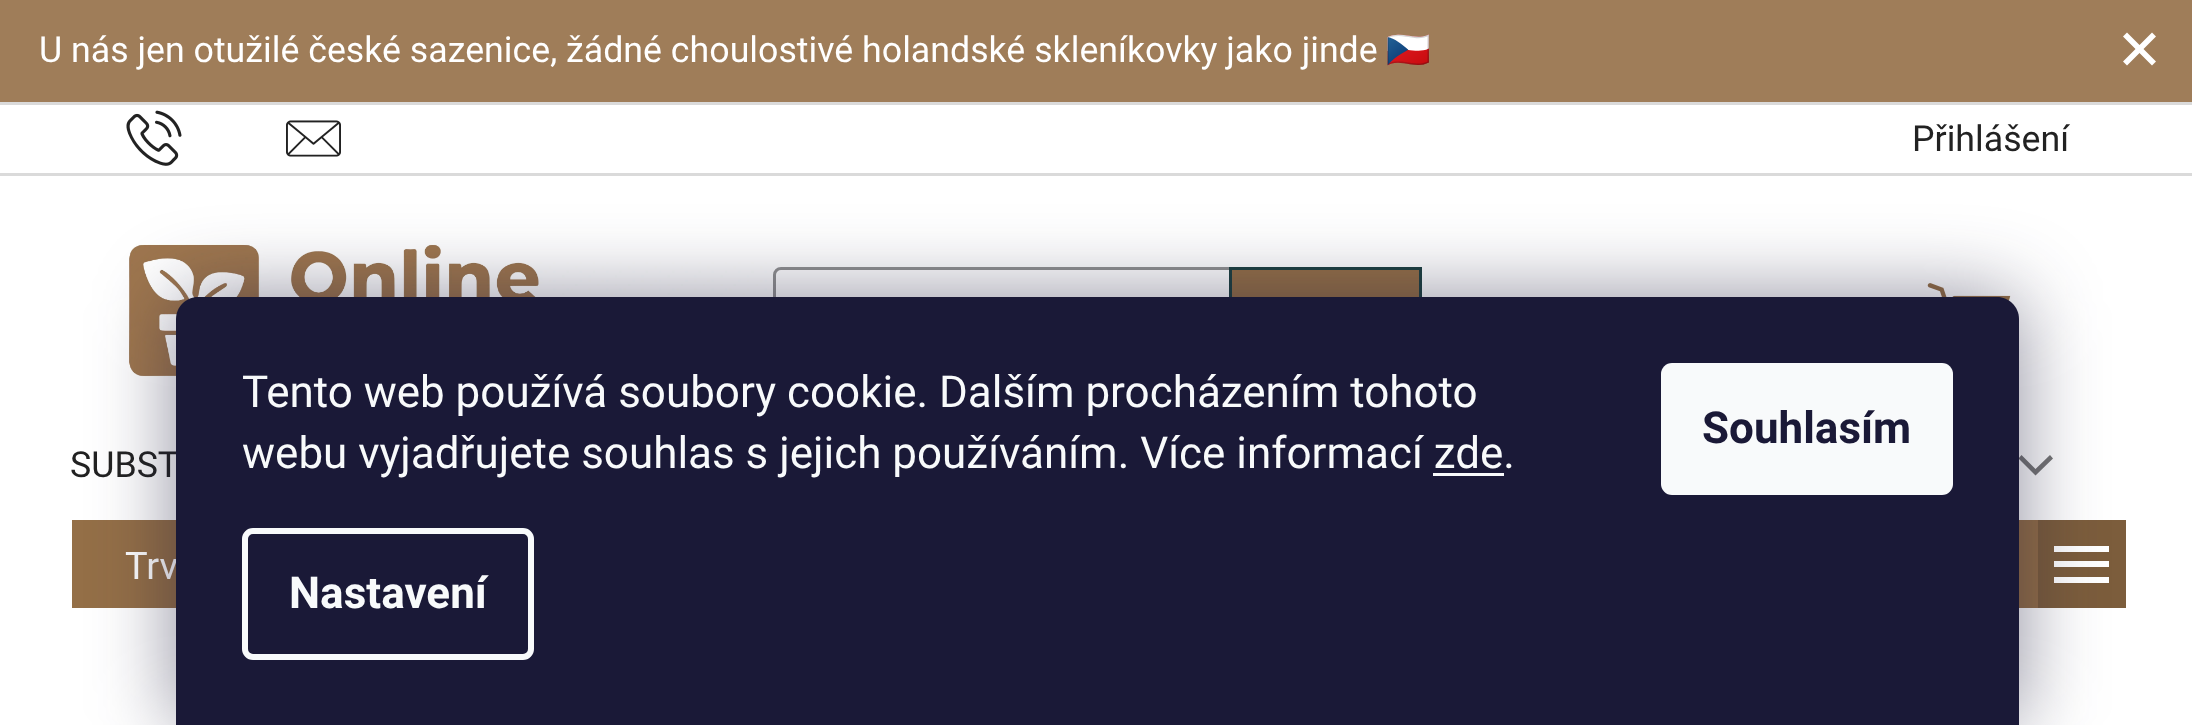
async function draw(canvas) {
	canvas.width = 2192;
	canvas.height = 725;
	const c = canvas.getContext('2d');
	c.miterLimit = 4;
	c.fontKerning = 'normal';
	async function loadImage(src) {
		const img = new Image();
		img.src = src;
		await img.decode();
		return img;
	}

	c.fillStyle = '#fff';
	c.fillRect(0, 0, 2192, 725);
	c.fillStyle = '#9f7d59';
	c.fillRect(0, 0, 2192, 102);
	c.font = '35.75px Roboto';
	c.fillStyle = '#fff';
	c.fillText('U nás jen otužilé české sazenice, žádné choulostivé holandské skleníkovky jako jinde', 39, 62);
	c.font = '35.75px Noto Color Emoji';
	c.fillText('🇨🇿', 1386, 62);
	c.beginPath();
	c.moveTo(2127, 32.5);
	c.lineTo(2123, 36.5);
	c.lineTo(2135.5, 49);
	c.lineTo(2123, 61.5);
	c.lineTo(2127, 65.5);
	c.lineTo(2139.5, 53);
	c.lineTo(2152, 65.5);
	c.lineTo(2156, 61.5);
	c.lineTo(2143.5, 49);
	c.lineTo(2156, 36.5);
	c.lineTo(2152, 32.5);
	c.lineTo(2139.5, 45);
	c.closePath();
	c.fill();
	c.fillStyle = '#dadada';
	c.fillRect(0, 102, 2192, 3);
	c.fillRect(0, 173, 2192, 3);
	c.drawImage(await loadImage('img1.png'), 126, 110, 56, 56);
	c.drawImage(await loadImage('img2.png'), 286, 120, 55, 37);
	c.font = '35.75px Roboto';
	c.fillStyle = '#222';
	c.fillText('Přihlášení', 1912, 151);
	c.fillText('SUBST', 70, 477);
	c.fillStyle = '#767676';
	c.beginPath();
	c.moveTo(2018.5, 458.5);
	c.lineTo(2021.5, 455);
	c.lineTo(2035.5, 469);
	c.lineTo(2050, 455);
	c.lineTo(2053, 458.5);
	c.lineTo(2035.5, 475.5);
	c.closePath();
	c.fill();
	c.drawImage(await loadImage('img3.png'), 129, 244, 641, 133);
	c.beginPath();
	c.roundRect(774.5, 268.5, 646, 96, 6.5);
	c.strokeStyle = '#919191';
	c.lineWidth = 3;
	c.stroke();
	c.fillStyle = '#946f47';
	c.fillRect(1232, 270, 187, 27);
	c.strokeStyle = '#1d4040';
	c.strokeRect(1230.5, 268.5, 190, 96);
	c.drawImage(await loadImage('img4.png'), 1927, 283, 84, 18);
	c.fillRect(72, 520, 1966, 88);
	c.font = '38px Roboto';
	c.fillStyle = '#fff';
	c.fillText('Trv', 125, 579);
	c.fillStyle = '#7c5d3c';
	c.fillRect(2038, 520, 88, 88);
	c.fillStyle = '#fff';
	c.beginPath();
	c.moveTo(2054, 583);
	c.lineTo(2109, 583);
	c.lineTo(2109, 577);
	c.lineTo(2054, 577);
	c.closePath();
	c.moveTo(2054, 567);
	c.lineTo(2109, 567);
	c.lineTo(2109, 561);
	c.lineTo(2054, 561);
	c.closePath();
	c.moveTo(2054, 546);
	c.lineTo(2054, 552);
	c.lineTo(2109, 552);
	c.lineTo(2109, 546);
	c.closePath();
	c.fill();
	c.fillStyle = '#1b193980';
	c.filter = 'blur(41px)';
	c.beginPath();
	c.roundRect(176, 297, 1843, 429, 22);
	c.fill();
	c.filter = 'none';
	c.fillStyle = '#1a1937';
	c.beginPath();
	c.moveTo(198, 297);
	c.lineTo(1997, 297);
	c.bezierCurveTo(2009, 297, 2019, 307, 2019, 319);
	c.lineTo(2019, 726);
	c.lineTo(176, 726);
	c.lineTo(176, 319);
	c.bezierCurveTo(176, 307, 186, 297, 198, 297);
	c.closePath();
	c.fill();
	c.font = '44px Roboto';
	c.fillStyle = '#f8fafb';
	c.fillText('Tento web používá soubory cookie. Dalším procházením tohoto', 242, 407);
	c.fillText('webu vyjadřujete souhlas s jejich používáním. Více informací zde.', 242, 468);
	c.fillRect(1433, 473, 71, 3);
	c.beginPath();
	c.roundRect(245, 531, 286, 126, 8);
	c.strokeStyle = '#f8fafb';
	c.lineWidth = 6;
	c.stroke();
	c.font = 'bold 44px Roboto';
	c.fillText('Nastavení', 289, 608);
	c.beginPath();
	c.roundRect(1661, 363, 292, 132, 11);
	c.fill();
	c.fillStyle = '#1a1937';
	c.fillText('Souhlasím', 1702, 443);
}

draw(document.querySelector('canvas'));
